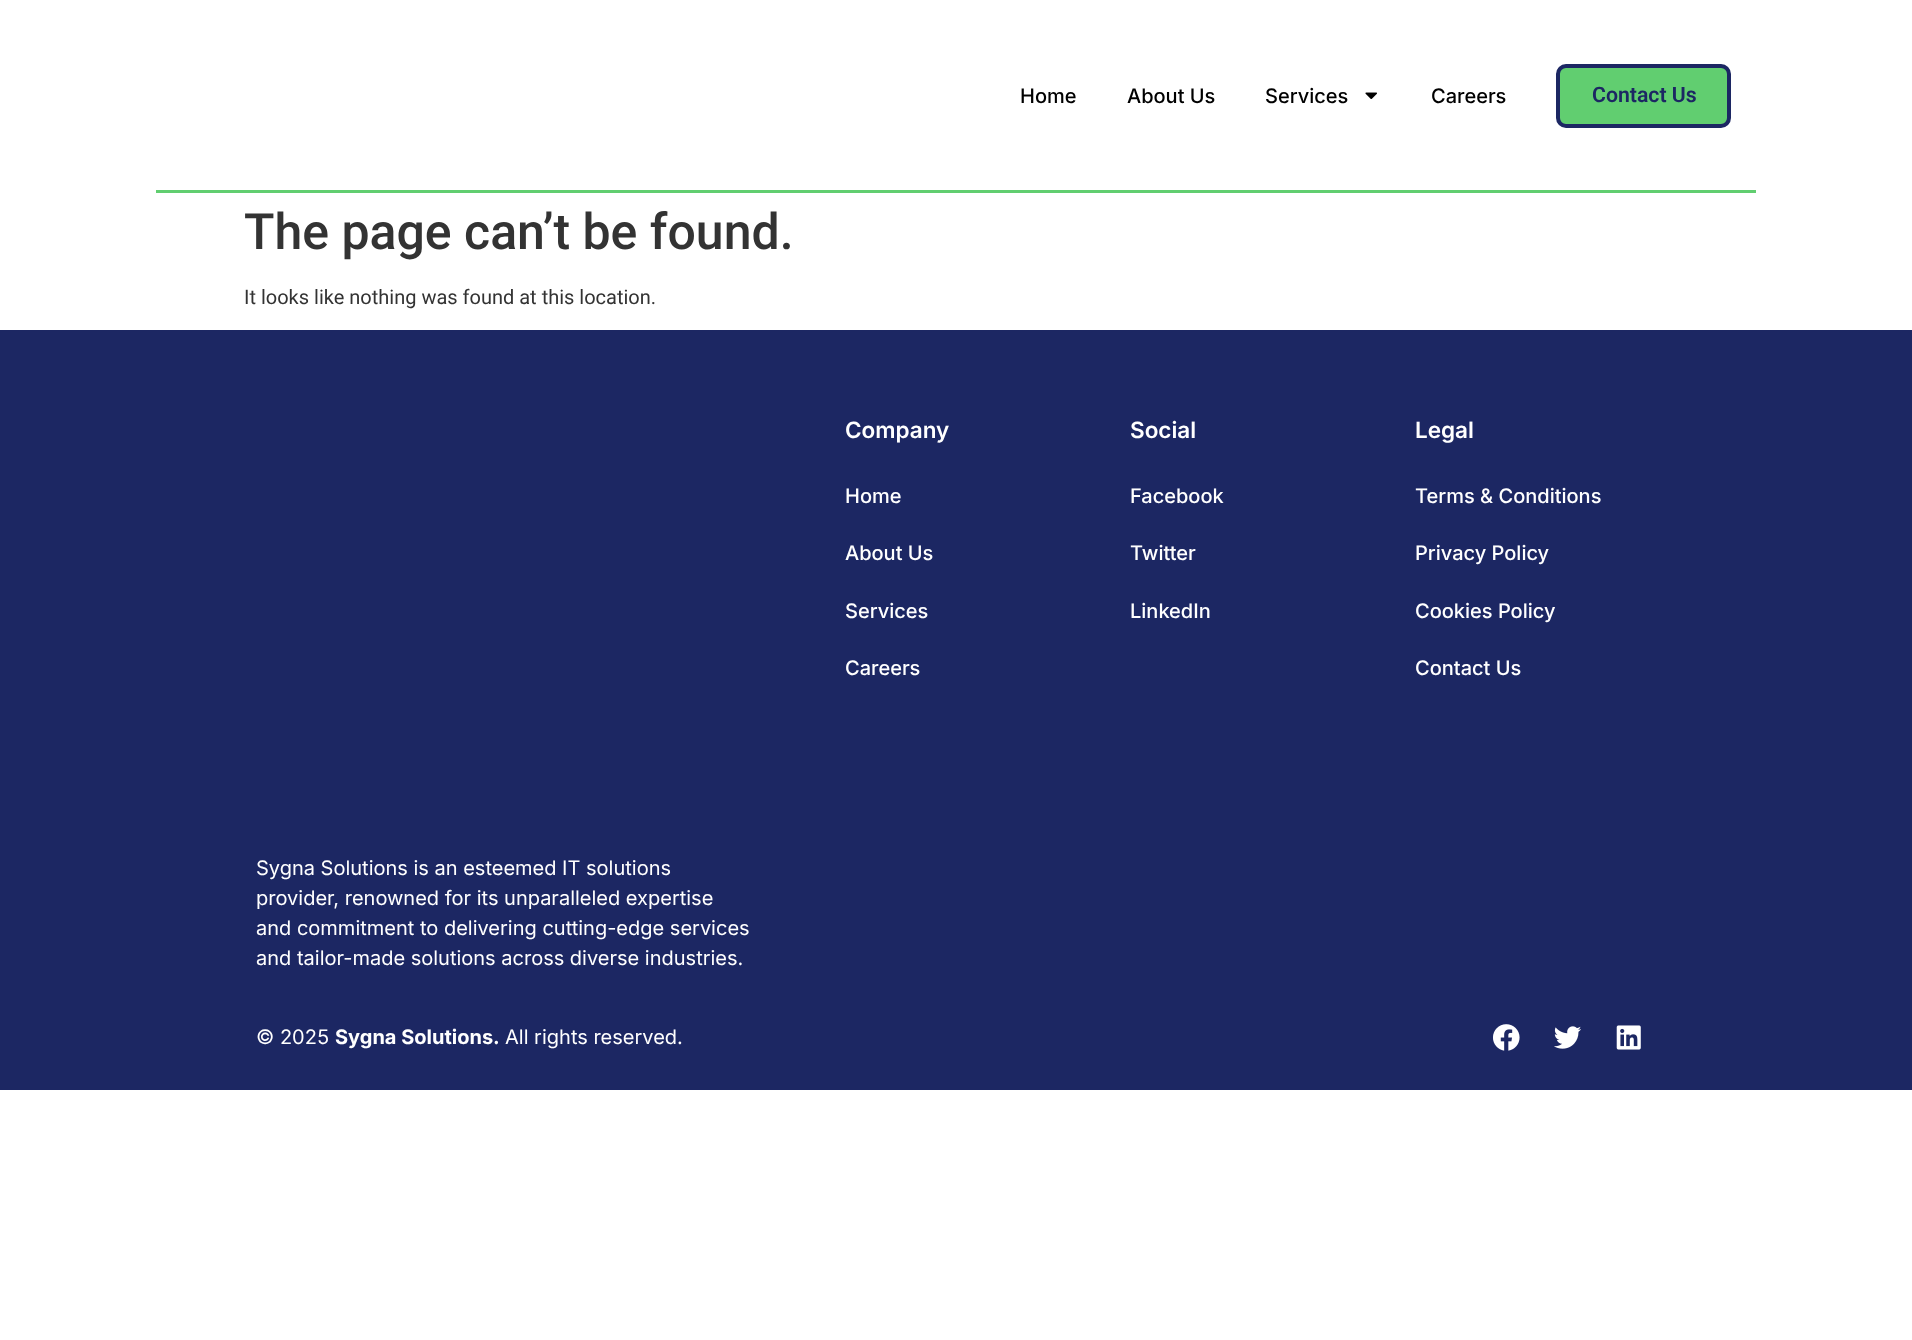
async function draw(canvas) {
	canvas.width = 1912;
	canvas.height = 1340;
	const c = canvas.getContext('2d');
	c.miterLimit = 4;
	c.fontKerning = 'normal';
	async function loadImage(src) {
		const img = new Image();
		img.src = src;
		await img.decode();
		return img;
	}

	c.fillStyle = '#fff';
	c.fillRect(0, 0, 1912, 1340);
	c.fillStyle = '#61ce70';
	c.fillRect(156, 190, 1600, 3);
	c.font = '500 20px Inter';
	c.fillStyle = '#000';
	for (const [text, x, y] of [
		['Home', 1020, 103],
		['About Us', 1127, 103],
		['Services', 1265, 103],
	]) {
		c.fillText(text, x, y);
	}
	c.drawImage(await loadImage('img1.png'), 1365, 92, 12, 7);
	c.fillText('Careers', 1431, 103);
	c.fillStyle = '#61ce70';
	c.beginPath();
	c.roundRect(1558, 66, 171, 60, 8);
	c.fill();
	c.strokeStyle = '#1c2763';
	c.lineWidth = 4;
	c.stroke();
	c.font = '600 21.25px Roboto';
	c.fillStyle = '#1c2763';
	c.fillText('Contact Us', 1592, 102);
	c.font = '500 50px Roboto';
	c.fillStyle = '#333';
	c.fillText('The page can’t be found.', 244, 249);
	c.font = '20px Roboto';
	c.fillText('It looks like nothing was found at this location.', 244, 304);
	c.fillStyle = '#1c2763';
	c.fillRect(0, 330, 1912, 760);
	c.font = '600 22.5px Inter';
	c.fillStyle = '#fff';
	c.fillText('Company', 845, 438);
	c.font = '500 20px Inter';
	for (const [text, x, y] of [
		['Home', 845, 503],
		['About Us', 845, 560],
		['Services', 845, 618],
		['Careers', 845, 675],
	]) {
		c.fillText(text, x, y);
	}
	c.font = '600 22.5px Inter';
	c.fillText('Social', 1130, 438);
	c.font = '500 20px Inter';
	for (const [text, x, y] of [
		['Facebook', 1130, 503],
		['Twitter', 1130, 560],
		['LinkedIn', 1130, 618],
	]) {
		c.fillText(text, x, y);
	}
	c.font = '600 22.5px Inter';
	c.fillText('Legal', 1415, 438);
	c.font = '500 20px Inter';
	for (const [text, x, y] of [
		['Terms & Conditions', 1415, 503],
		['Privacy Policy', 1415, 560],
		['Cookies Policy', 1415, 618],
		['Contact Us', 1415, 675],
	]) {
		c.fillText(text, x, y);
	}
	c.font = '20px Inter';
	for (const [text, x, y] of [
		['Sygna Solutions is an esteemed IT solutions', 256, 875],
		['provider, renowned for its unparalleled expertise', 256, 905],
		['and commitment to delivering cutting-edge services', 256, 935],
		['and tailor-made solutions across diverse industries.', 256, 965],
		['© 2025', 256, 1044],
	]) {
		c.fillText(text, x, y);
	}
	c.font = 'bold 20px Inter';
	c.fillText('Sygna Solutions.', 335, 1044);
	c.font = '20px Inter';
	c.fillText('All rights reserved.', 505, 1044);
	c.drawImage(await loadImage('img2.png'), 1493, 1024, 27, 27);
	c.drawImage(await loadImage('img3.png'), 1554, 1026, 27, 23);
	c.drawImage(await loadImage('img4.png'), 1616, 1025, 25, 25);
}

draw(document.querySelector('canvas'));
